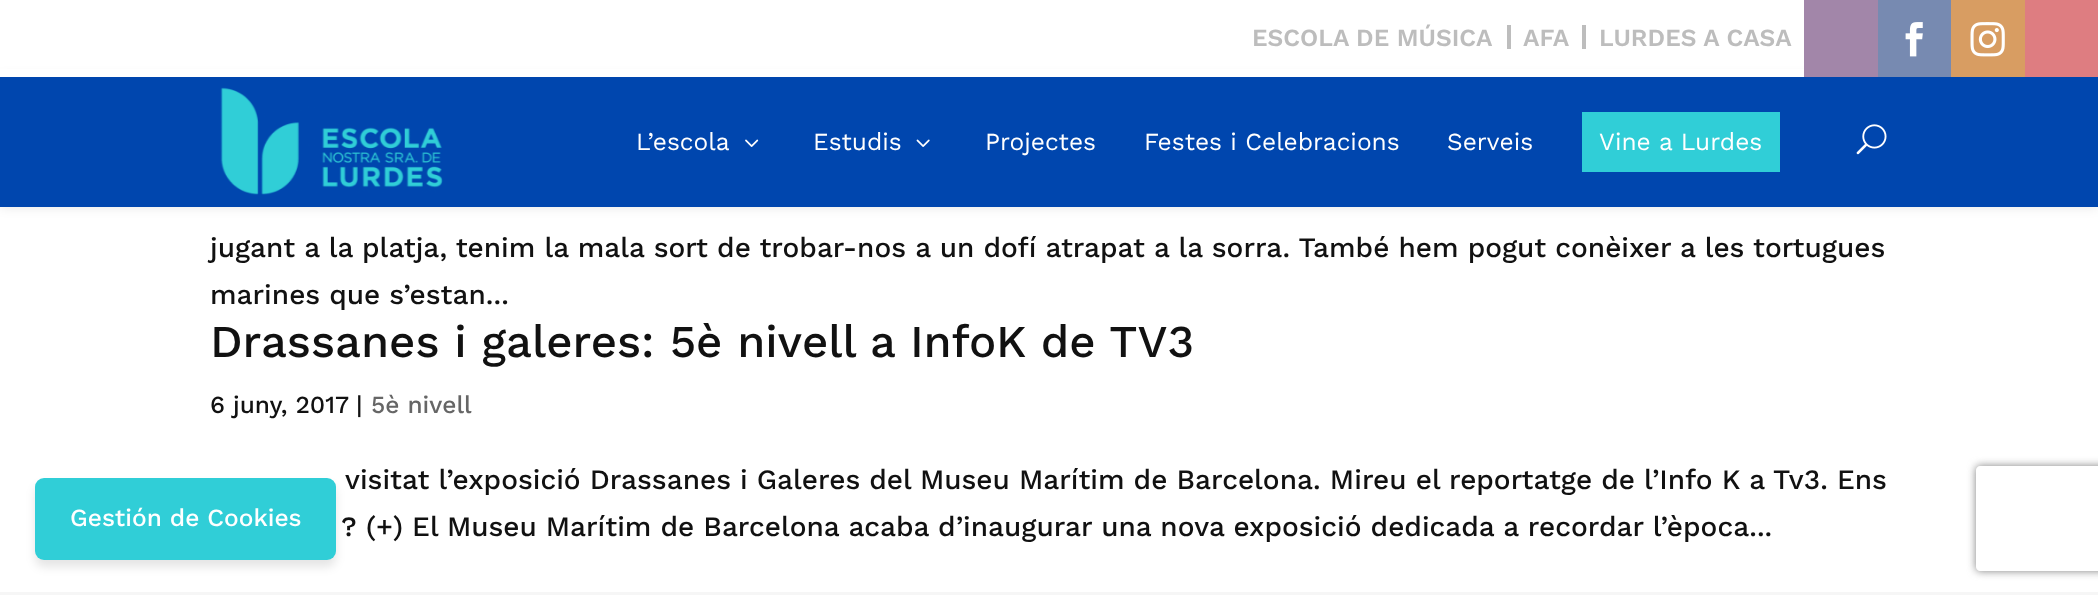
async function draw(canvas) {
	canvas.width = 2098;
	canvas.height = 595;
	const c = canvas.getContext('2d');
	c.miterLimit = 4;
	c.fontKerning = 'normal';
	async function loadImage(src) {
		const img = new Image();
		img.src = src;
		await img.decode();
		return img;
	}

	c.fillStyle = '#fff';
	c.fillRect(0, 0, 2098, 595);
	c.fillStyle = '#0000001a';
	c.filter = 'blur(5px)';
	c.beginPath();
	c.roundRect(35, 485, 301, 82, 9);
	c.fill();
	c.filter = 'none';
	c.fillStyle = '#30ced7';
	c.beginPath();
	c.roundRect(35, 478, 301, 82, 9);
	c.fill();
	c.font = '500 24.5px Work Sans';
	c.fillStyle = '#fff';
	c.fillText('Gestión de Cookies', 70, 526);
	c.fillStyle = '#0000001a';
	c.filter = 'blur(6px)';
	c.beginPath();
	c.rect(0, 77, 2098, 130);
	c.fill();
	c.filter = 'none';
	c.fillStyle = '#fff';
	c.fillRect(0, 69, 1804, 8);
	c.fillStyle = '#bdbdbd';
	c.fillRect(1507, 25, 4, 24);
	c.font = '600 24.5px Work Sans';
	c.fillText('ESCOLA DE MÚSICA', 1252, 46);
	c.fillRect(1582, 25, 4, 24);
	c.fillText('AFA', 1523, 46);
	c.fillText('LURDES A CASA', 1599, 46);
	c.fillStyle = '#a286a9';
	c.fillRect(1804, 0, 74, 77);
	c.fillStyle = '#778ab1';
	c.fillRect(1878, 0, 73, 77);
	c.drawImage(await loadImage('img1.png'), 1905, 22, 18, 35);
	c.fillStyle = '#d89d62';
	c.fillRect(1951, 0, 74, 77);
	c.drawImage(await loadImage('img2.png'), 1970, 22, 35, 35);
	c.fillStyle = '#de7d81';
	c.fillRect(2025, 0, 73, 77);
	c.fillStyle = '#0046ae';
	c.fillRect(0, 77, 2098, 130);
	c.drawImage(await loadImage('img3.png'), 220, 87, 223, 108);
	c.font = '24.5px Work Sans';
	c.fillStyle = '#fff';
	c.fillText('L’escola', 636, 150);
	c.drawImage(await loadImage('img4.png'), 745, 139, 14, 8);
	c.fillText('Estudis', 813, 150);
	c.drawImage(await loadImage('img5.png'), 916, 139, 14, 8);
	for (const [text, x, y] of [
		['Projectes', 985, 150],
		['Festes i Celebracions', 1144, 150],
		['Serveis', 1447, 150],
	]) {
		c.fillText(text, x, y);
	}
	c.fillStyle = '#30ced7';
	c.fillRect(1582, 112, 198, 60);
	c.fillStyle = '#fff';
	c.fillText('Vine a Lurdes', 1599, 150);
	c.drawImage(await loadImage('img6.png'), 1856, 124, 31, 31);
	c.font = '500 28px Work Sans';
	c.fillStyle = '#111';
	c.fillText('jugant a la platja, tenim la mala sort de trobar-nos a un dofí atrapat a la sorra. També hem pogut conèixer a les tortugues', 210, 257);
	c.fillText('marines que s’estan...', 210, 304);
	c.font = '500 45.5px Work Sans';
	c.fillText('Drassanes i galeres: 5è nivell a InfoK de TV3', 210, 357);
	c.font = '500 24.5px Work Sans';
	c.fillText('6 juny, 2017', 210, 413);
	c.fillText('|', 356, 413);
	c.fillStyle = '#666';
	c.fillText('5è nivell', 371, 413);
	c.font = '500 28px Work Sans';
	c.fillStyle = '#111';
	c.fillText('visitat l’exposició Drassanes i Galeres del Museu Marítim de Barcelona. Mireu el reportatge de l’Info K a Tv3. Ens', 345, 489);
	c.fillText('? (+) El Museu Marítim de Barcelona acaba d’inaugurar una nova exposició dedicada a recordar l’època...', 341, 536);
	c.fillStyle = '#f6f6f6';
	c.fillRect(0, 592, 2098, 3);
	c.save();
	c.beginPath();
	c.moveTo(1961, 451);
	c.lineTo(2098, 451);
	c.lineTo(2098, 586);
	c.lineTo(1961, 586);
	c.closePath();
	c.moveTo(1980, 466);
	c.lineTo(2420, 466);
	c.bezierCurveTo(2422, 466, 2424, 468, 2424, 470);
	c.lineTo(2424, 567);
	c.bezierCurveTo(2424, 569, 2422, 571, 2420, 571);
	c.lineTo(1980, 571);
	c.bezierCurveTo(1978, 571, 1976, 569, 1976, 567);
	c.lineTo(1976, 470);
	c.bezierCurveTo(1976, 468, 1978, 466, 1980, 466);
	c.closePath();
	c.clip('evenodd');
	c.fillStyle = '#808080';
	c.filter = 'blur(4.5px)';
	c.beginPath();
	c.roundRect(1976, 466, 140, 105, 4);
	c.fill();
	c.filter = 'none';
	c.restore();
}

draw(document.querySelector('canvas'));
